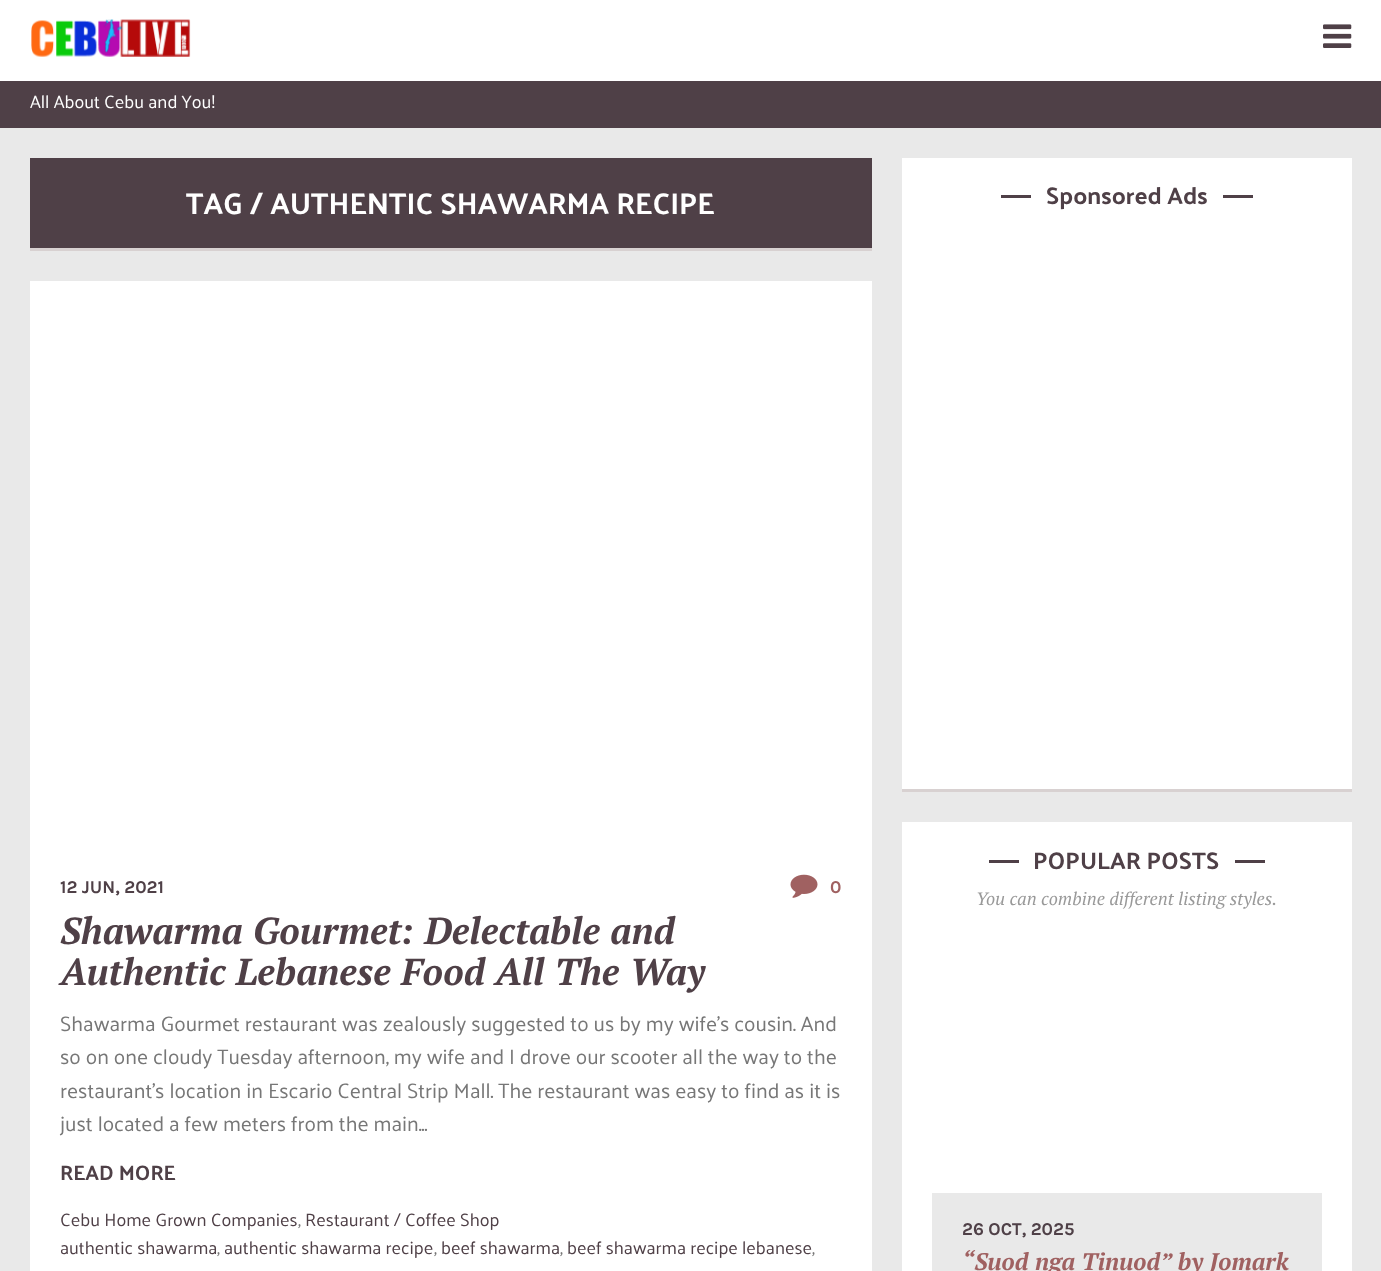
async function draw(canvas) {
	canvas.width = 1381;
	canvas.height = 1271;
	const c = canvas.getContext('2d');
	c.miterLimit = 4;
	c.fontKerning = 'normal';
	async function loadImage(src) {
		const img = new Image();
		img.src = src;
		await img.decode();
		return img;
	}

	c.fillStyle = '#e9e9e9';
	c.fillRect(0, 0, 1381, 1271);
	c.fillStyle = '#fff';
	c.fillRect(0, 0, 1381, 81);
	c.drawImage(await loadImage('img1.png'), 31, 19, 160, 38);
	c.drawImage(await loadImage('img2.png'), 1323, 24, 29, 24);
	c.fillStyle = '#4f4047';
	c.fillRect(0, 81, 1381, 47);
	c.font = '18px Palanquin';
	c.fillStyle = '#fff';
	c.fillText('All About Cebu and You!', 30, 108);
	c.fillStyle = '#4f4047';
	c.fillRect(30, 158, 842, 90);
	c.font = 'bold 30px Palanquin';
	c.fillStyle = '#fff';
	c.fillText('TAG / AUTHENTIC SHAWARMA RECIPE', 186, 214);
	c.fillStyle = '#d8d1d1';
	c.fillRect(30, 248, 842, 3);
	c.fillStyle = '#fff';
	c.fillRect(30, 281, 842, 990);
	c.font = 'bold 18px Karla';
	c.fillStyle = '#4f4047';
	c.fillText('12 JUN, 2021', 60, 893);
	c.drawImage(await loadImage('img3.png'), 790, 874, 28, 24);
	c.fillStyle = '#a06161';
	c.fillText('0', 830, 893);
	c.font = 'italic bold 37.5px PT Serif';
	c.fillStyle = '#4f4047';
	c.fillText('Shawarma Gourmet: Delectable and', 60, 944);
	c.fillText('Authentic Lebanese Food All The Way', 60, 985);
	c.font = '21px Palanquin';
	c.fillStyle = '#777';
	for (const [text, x, y] of [
		['Shawarma Gourmet restaurant was zealously suggested to us by my wife’s cousin. And', 60, 1031],
		['so on one cloudy Tuesday afternoon, my wife and I drove our scooter all the way to the', 60, 1064],
		['restaurant’s location in Escario Central Strip Mall. The restaurant was easy to find as it is', 60, 1098],
		['just located a few meters from the main...', 60, 1131],
	]) {
		c.fillText(text, x, y);
	}
	c.font = 'bold 21px Palanquin';
	c.fillStyle = '#4f4047';
	c.fillText('READ MORE', 60, 1180);
	c.font = '18px Palanquin';
	c.fillText('Cebu Home Grown Companies', 60, 1226);
	c.fillStyle = '#777';
	c.fillText(',', 298, 1226);
	c.fillStyle = '#4f4047';
	c.fillText('Restaurant / Coffee Shop', 305, 1226);
	c.fillText('authentic shawarma', 60, 1254);
	c.fillStyle = '#777';
	c.fillText(',', 217, 1254);
	c.fillStyle = '#4f4047';
	c.fillText('authentic shawarma recipe', 224, 1254);
	c.fillStyle = '#777';
	c.fillText(',', 434, 1254);
	c.fillStyle = '#4f4047';
	c.fillText('beef shawarma', 441, 1254);
	c.fillStyle = '#777';
	c.fillText(',', 560, 1254);
	c.fillStyle = '#4f4047';
	c.fillText('beef shawarma recipe lebanese', 567, 1254);
	c.fillStyle = '#777';
	c.fillText(',', 812, 1254);
	c.fillStyle = '#fff';
	c.fillRect(902, 158, 450, 631);
	c.fillStyle = '#4f4047';
	c.fillRect(1001, 195, 30, 3);
	c.font = 'bold 24px Palanquin';
	c.fillText('Sponsored Ads', 1046, 204);
	for (const [x, y, w, h, color] of [
		[1223, 195, 30, 3, '#4f4047'],
		[902, 789, 450, 3, '#d8d1d1'],
		[902, 822, 450, 449, '#fff'],
		[989, 860, 30, 3, '#4f4047'],
	]) {
		c.fillStyle = color;
		c.fillRect(x, y, w, h);
	}
	c.fillText('POPULAR POSTS', 1033, 869);
	c.fillRect(1235, 860, 30, 3);
	c.font = 'italic 18px PT Serif';
	c.fillStyle = '#999';
	c.fillText('You can combine different listing styles.', 976, 905);
	c.fillStyle = '#e9e9e9';
	c.fillRect(932, 1193, 390, 78);
	c.font = 'bold 18px Karla';
	c.fillStyle = '#4f4047';
	c.fillText('26 OCT, 2025', 962, 1235);
	c.font = 'italic bold 24px PT Serif';
	c.fillStyle = '#a06161';
	c.fillText('“Suod nga Tinuod” by Jomark', 962, 1270);
}

draw(document.querySelector('canvas'));
